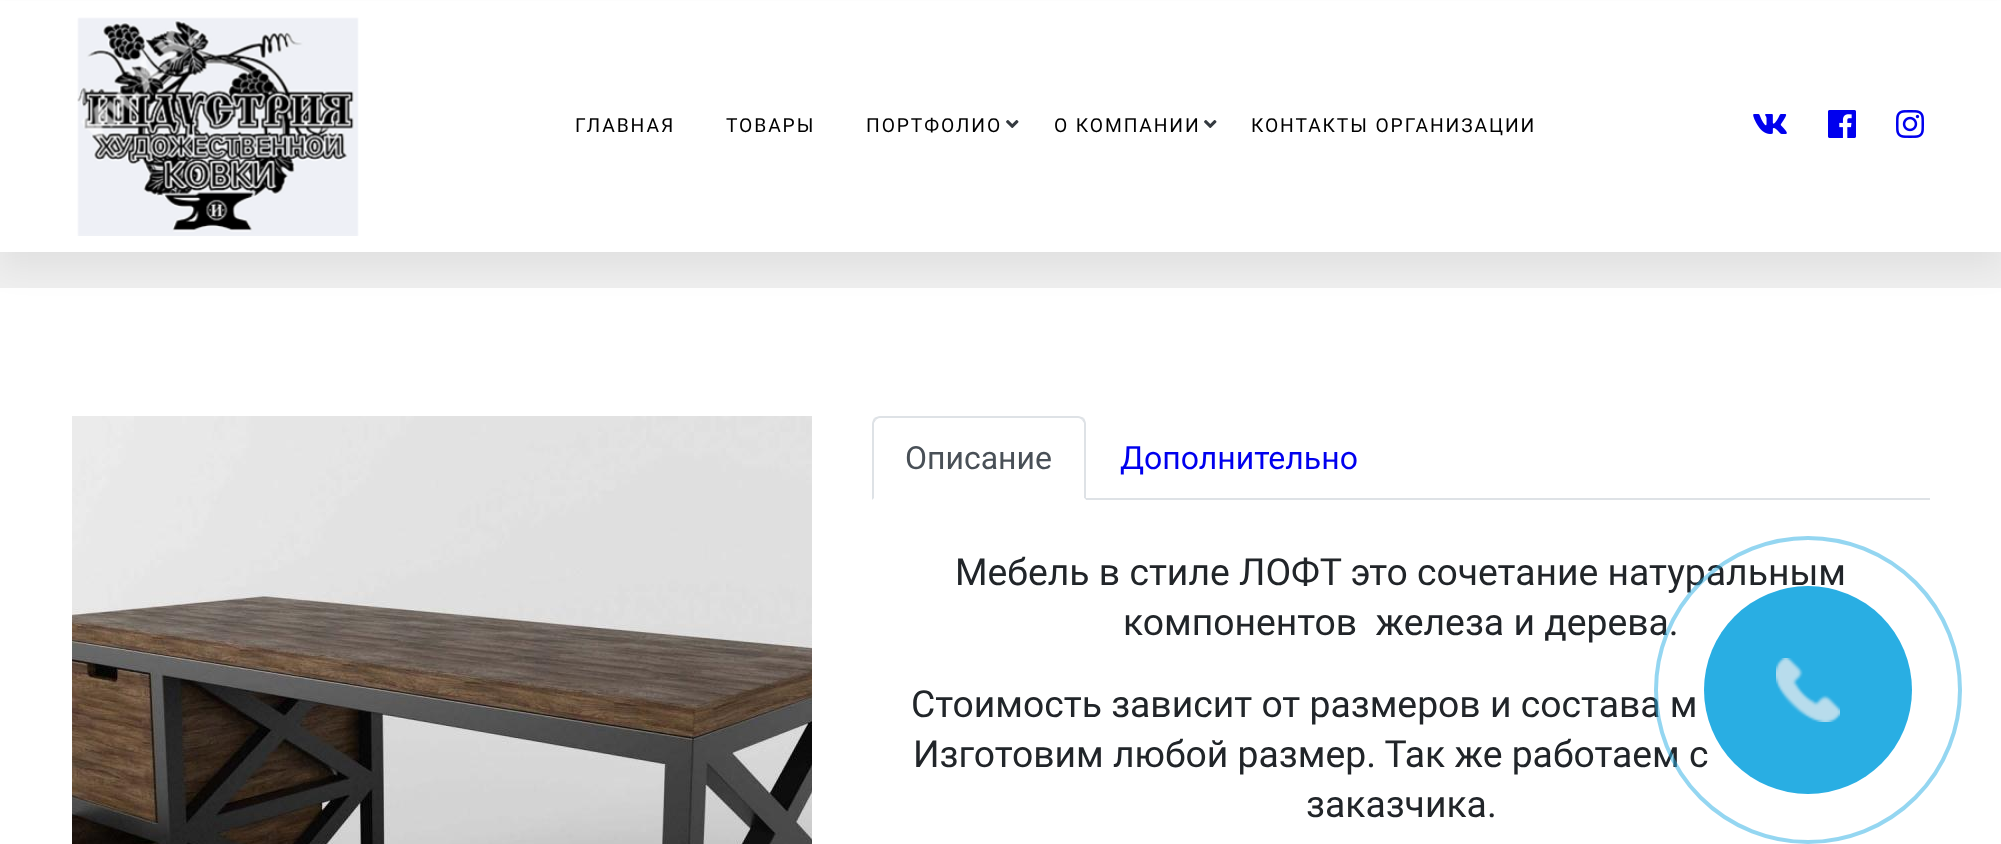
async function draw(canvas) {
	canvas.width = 2001;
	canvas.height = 844;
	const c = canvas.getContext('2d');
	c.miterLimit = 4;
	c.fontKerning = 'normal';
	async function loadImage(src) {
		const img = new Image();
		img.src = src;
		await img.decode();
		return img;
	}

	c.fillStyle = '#fff';
	c.fillRect(0, 0, 2001, 844);
	c.fillStyle = '#efefef';
	c.fillRect(0, 252, 2001, 36);
	c.fillStyle = '#0000000f';
	c.filter = 'blur(16px)';
	c.beginPath();
	c.rect(0, 16, 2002, 252);
	c.fill();
	c.filter = 'none';
	c.fillStyle = '#fff';
	c.fillRect(0, 1, 2001, 251);
	c.drawImage(await loadImage('img1.png'), 77, 17, 282, 219);
	c.letterSpacing = '1.9px';
	c.font = '19.25px Roboto';
	c.fillStyle = '#000';
	for (const [text, x, y] of [
		['ГЛАВНАЯ', 575, 132],
		['ТОВАРЫ', 726, 132],
		['ПОРТФОЛИО', 866, 132],
	]) {
		c.fillText(text, x, y);
	}
	c.drawImage(await loadImage('img2.png'), 1006, 120, 13, 8);
	c.fillText('О КОМПАНИИ', 1054, 132);
	c.drawImage(await loadImage('img2.png'), 1204, 120, 13, 8);
	c.fillText('КОНТАКТЫ ОРГАНИЗАЦИИ', 1251, 132);
	c.drawImage(await loadImage('img3.png'), 1753, 114, 34, 20);
	c.drawImage(await loadImage('img4.png'), 1828, 110, 28, 28);
	c.drawImage(await loadImage('img5.png'), 1896, 110, 28, 28);
	c.drawImage(await loadImage('img6.png'), 72, 416, 740, 428);
	c.fillStyle = '#dee2e6';
	c.fillRect(1086, 498, 844, 2);
	c.beginPath();
	c.moveTo(880, 416);
	c.bezierCurveTo(878, 416, 876, 417, 874, 418);
	c.lineTo(876, 420);
	c.bezierCurveTo(877, 419, 878, 418, 880, 418);
	c.lineTo(1078, 418);
	c.bezierCurveTo(1080, 418, 1081, 419, 1082, 420);
	c.lineTo(1084, 418);
	c.bezierCurveTo(1082, 417, 1080, 416, 1078, 416);
	c.closePath();
	c.fill();
	c.beginPath();
	c.moveTo(1086, 500);
	c.lineTo(1086, 424);
	c.bezierCurveTo(1086, 422, 1085, 420, 1084, 418);
	c.lineTo(1082, 420);
	c.lineTo(1084, 423);
	c.lineTo(1084, 498);
	c.closePath();
	c.fill();
	c.fillStyle = '#fff';
	c.beginPath();
	c.moveTo(1086, 500);
	c.lineTo(1084, 498);
	c.lineTo(874, 498);
	c.lineTo(872, 500);
	c.closePath();
	c.fill();
	c.fillStyle = '#dee2e6';
	c.beginPath();
	c.moveTo(872, 500);
	c.lineTo(874, 498);
	c.lineTo(874, 423);
	c.lineTo(876, 420);
	c.lineTo(874, 418);
	c.bezierCurveTo(873, 420, 872, 422, 872, 424);
	c.closePath();
	c.fill();
	c.letterSpacing = '0px';
	c.font = '32px Roboto';
	c.fillStyle = '#495057';
	c.fillText('Описание', 905, 469);
	c.fillStyle = '#00e';
	c.fillText('Дополнительно', 1120, 469);
	c.font = '37.3px Roboto';
	c.fillStyle = '#212529';
	for (const [text, x, y] of [
		['Мебель в стиле ЛОФТ это сочетание натуральным', 955, 585],
		['компонентов  железа и дерева.', 1123, 635],
		['Стоимость зависит от размеров и состава м', 911, 717],
		['Изготовим любой размер. Так же работаем с', 913, 767],
		['заказчика.', 1306, 817],
	]) {
		c.fillText(text, x, y);
	}
	c.beginPath();
	c.arc(1808, 690, 152, 0, 2 * Math.PI);
	c.strokeStyle = '#29aee380';
	c.lineWidth = 4;
	c.stroke();
	c.fillStyle = '#29aee3';
	c.beginPath();
	c.arc(1808, 690, 104, 0, 2 * Math.PI);
	c.fill();
	c.drawImage(await loadImage('img7.png'), 1776, 658, 64, 64);
}

draw(document.querySelector('canvas'));
